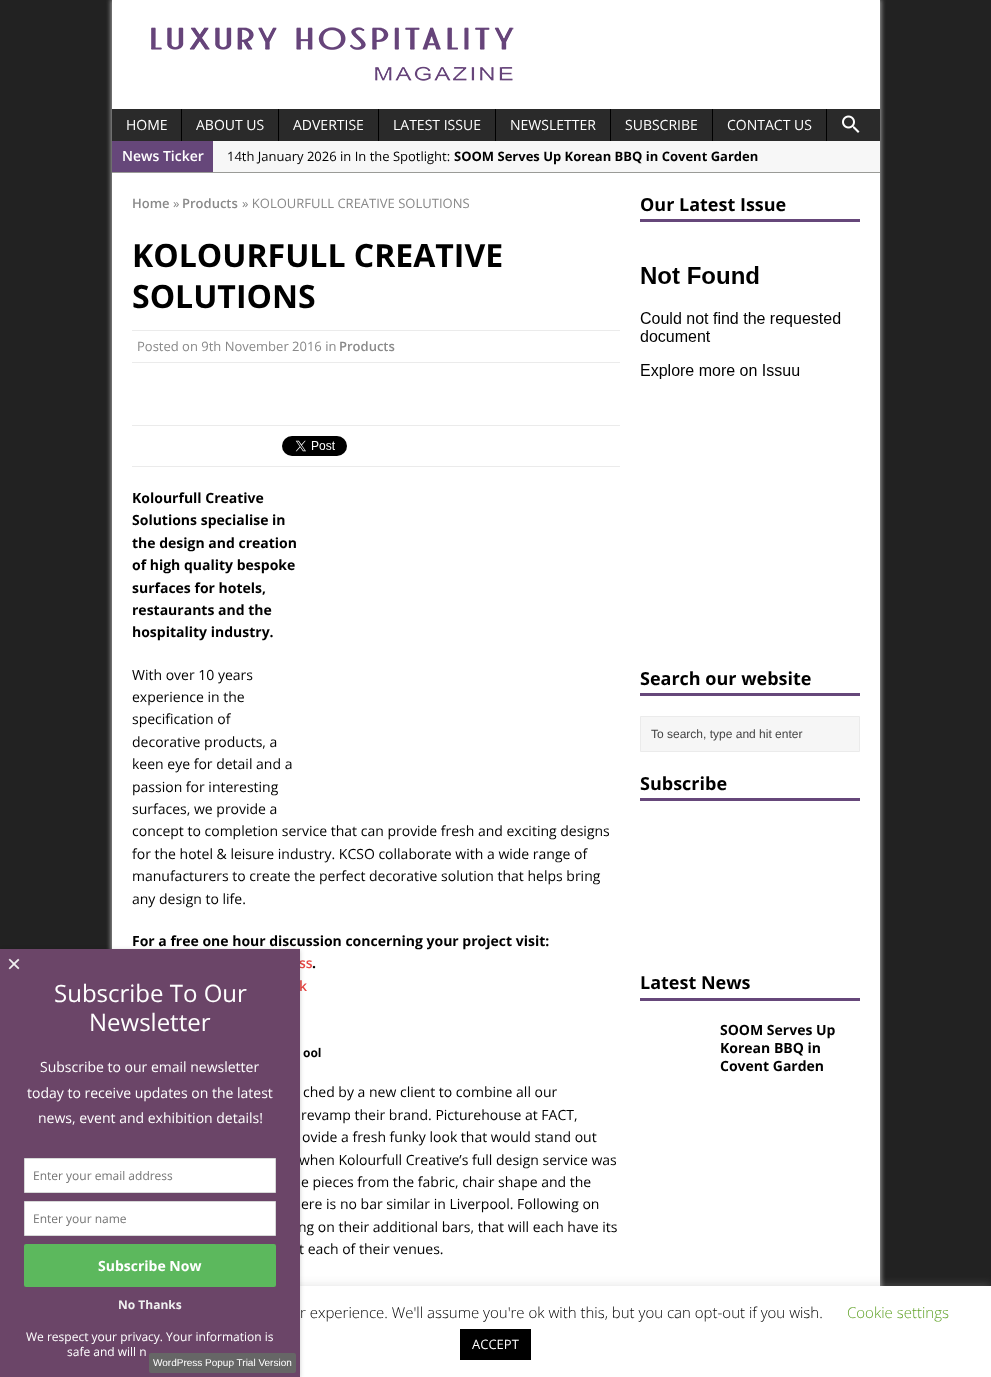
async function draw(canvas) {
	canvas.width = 991;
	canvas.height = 1377;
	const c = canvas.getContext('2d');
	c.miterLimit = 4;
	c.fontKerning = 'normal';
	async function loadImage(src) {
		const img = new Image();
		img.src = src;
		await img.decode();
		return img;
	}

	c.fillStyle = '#222';
	c.fillRect(0, 0, 991, 1377);
	c.fillStyle = '#a8a8a8';
	c.filter = 'blur(2.5px)';
	c.beginPath();
	c.rect(111, -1, 770, 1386);
	c.fill();
	c.filter = 'none';
	c.fillStyle = '#fff';
	c.fillRect(112, 0, 768, 109);
	c.drawImage(await loadImage('img1.png'), 151, 27, 363, 54);
	c.fillStyle = '#2a2a2a';
	c.fillRect(112, 109, 768, 32);
	c.font = '14px Open Sans';
	c.fillStyle = '#fff';
	c.fillText('HOME', 126, 130);
	c.fillStyle = '#000';
	c.fillRect(181, 109, 1, 32);
	c.fillStyle = '#fff';
	c.fillText('ABOUT US', 196, 130);
	c.fillStyle = '#000';
	c.fillRect(278, 109, 1, 32);
	c.fillStyle = '#fff';
	c.fillText('ADVERTISE', 293, 130);
	c.fillStyle = '#000';
	c.fillRect(378, 109, 1, 32);
	c.fillStyle = '#fff';
	c.fillText('LATEST ISSUE', 393, 130);
	c.fillStyle = '#000';
	c.fillRect(495, 109, 1, 32);
	c.fillStyle = '#fff';
	c.fillText('NEWSLETTER', 510, 130);
	c.fillStyle = '#000';
	c.fillRect(610, 109, 1, 32);
	c.fillStyle = '#fff';
	c.fillText('SUBSCRIBE', 625, 130);
	c.fillStyle = '#000';
	c.fillRect(712, 109, 1, 32);
	c.fillStyle = '#fff';
	c.fillText('CONTACT US', 727, 130);
	c.fillStyle = '#000';
	c.fillRect(826, 109, 1, 32);
	c.drawImage(await loadImage('img2.png'), 842, 115, 18, 18);
	for (const [x, y, w, h, color] of [
		[213, 141, 667, 31, '#f7f7f7'],
		[112, 172, 768, 1, '#9a9b97'],
		[112, 141, 101, 31, '#66477a'],
	]) {
		c.fillStyle = color;
		c.fillRect(x, y, w, h);
	}
	c.font = '600 14px Open Sans';
	c.fillStyle = '#fff';
	c.fillText('News Ticker', 122, 161);
	c.font = '13px Open Sans';
	c.fillStyle = '#000';
	c.fillText('14th January 2026 in In the Spotlight:', 227, 161);
	c.font = 'bold 13px Open Sans';
	c.fillText('SOOM Serves Up Korean BBQ in Covent Garden', 454, 161);
	c.fillStyle = '#fff';
	c.fillRect(112, 173, 768, 1113);
	c.font = '600 13px Open Sans';
	c.fillStyle = '#898989';
	c.fillText('Home', 132, 208);
	c.font = '13px Open Sans';
	c.fillText('»', 173, 208);
	c.font = '600 13px Open Sans';
	c.fillText('Products', 182, 208);
	c.font = '13px Open Sans';
	c.fillText('» KOLOURFULL CREATIVE SOLUTIONS', 242, 208);
	c.font = 'bold 32px Open Sans';
	c.fillStyle = '#000';
	c.fillText('KOLOURFULL CREATIVE', 132, 267);
	c.fillText('SOLUTIONS', 132, 308);
	c.fillStyle = '#ebebeb';
	c.fillRect(132, 330, 488, 1);
	c.fillRect(132, 362, 488, 1);
	c.font = '13px Open Sans';
	c.fillStyle = '#898989';
	c.fillText('Posted on 9th November 2016 in', 137, 351);
	c.font = '600 13px Open Sans';
	c.fillText('Products', 339, 351);
	c.fillStyle = '#ebebeb';
	c.fillRect(132, 425, 488, 1);
	c.fillRect(132, 466, 488, 1);
	c.drawImage(await loadImage('img3.png'), 282, 436, 65, 20);
	c.font = 'bold 14px Open Sans';
	c.fillStyle = '#000';
	for (const [text, x, y] of [
		['Kolourfull Creative', 132, 503],
		['Solutions specialise in', 132, 525],
		['the design and creation', 132, 548],
		['of high quality bespoke', 132, 570],
		['surfaces for hotels,', 132, 593],
		['restaurants and the', 132, 615],
		['hospitality industry.', 132, 637],
	]) {
		c.fillText(text, x, y);
	}
	c.font = '14px Open Sans';
	for (const [text, x, y] of [
		['With over 10 years', 132, 680],
		['experience in the', 132, 702],
		['specification of', 132, 724],
		['decorative products, a', 132, 747],
		['keen eye for detail and a', 132, 769],
		['passion for interesting', 132, 792],
		['surfaces, we provide a', 132, 814],
		['concept to completion service that can provide fresh and exciting designs', 132, 836],
		['for the hotel & leisure industry. KCSO collaborate with a wide range of', 132, 859],
		['manufacturers to create the perfect decorative solution that helps bring', 132, 881],
		['any design to life.', 132, 904],
	]) {
		c.fillText(text, x, y);
	}
	c.font = 'bold 14px Open Sans';
	c.fillText('For a free one hour discussion concerning your project visit:', 132, 946);
	c.font = '600 14px Open Sans';
	c.fillStyle = '#e64946';
	c.fillText('ss', 299, 968);
	c.font = 'bold 14px Open Sans';
	c.fillStyle = '#000';
	c.fillText('.', 312, 968);
	c.font = '600 14px Open Sans';
	c.fillStyle = '#e64946';
	c.fillText('k', 299, 991);
	c.font = 'bold 12px Open Sans';
	c.fillStyle = '#000';
	c.fillText('ool', 303, 1057);
	c.font = '14px Open Sans';
	for (const [text, x, y] of [
		['ched by a new client to combine all our', 303, 1097],
		['revamp their brand. Picturehouse at FACT,', 301, 1120],
		['ovide a fresh funky look that would stand out', 302, 1142],
		['when Kolourfull Creative’s full design service was', 299, 1165],
		['e pieces from the fabric, chair shape and the', 301, 1187],
		['ere is no bar similar in Liverpool. Following on', 301, 1209],
		['ng on their additional bars, that will each have its', 298, 1232],
		['t each of their venues.', 299, 1254],
	]) {
		c.fillText(text, x, y);
	}
	c.fillStyle = '#66477a';
	c.fillRect(640, 219, 220, 3);
	c.font = 'bold 18px Open Sans';
	c.fillStyle = '#000';
	c.fillText('Our Latest Issue', 640, 211);
	c.drawImage(await loadImage('img4.png'), 640, 266, 201, 113);
	c.fillStyle = '#66477a';
	c.fillRect(640, 693, 220, 3);
	c.fillStyle = '#000';
	c.fillText('Search our website', 640, 685);
	c.fillStyle = '#f6f6f6';
	c.beginPath();
	c.rect(640.5, 716.5, 219, 35);
	c.fill();
	c.strokeStyle = '#ebebeb';
	c.stroke();
	c.font = '12px Liberation Sans';
	c.fillStyle = '#444';
	c.fillText('To search, type and hit enter', 651, 738);
	c.fillStyle = '#66477a';
	c.fillRect(640, 798, 220, 3);
	c.font = 'bold 18px Open Sans';
	c.fillStyle = '#000';
	c.fillText('Subscribe', 640, 790);
	c.fillStyle = '#66477a';
	c.fillRect(640, 998, 220, 3);
	c.fillStyle = '#000';
	c.fillText('Latest News', 640, 989);
	c.font = 'bold 14px Open Sans';
	for (const [text, x, y] of [
		['SOOM Serves Up', 720, 1035],
		['Korean BBQ in', 720, 1053],
		['Covent Garden', 720, 1071],
	]) {
		c.fillText(text, x, y);
	}
	c.fillStyle = '#acabab4d';
	c.filter = 'blur(5px)';
	c.beginPath();
	c.rect(0, 1285, 991, 91);
	c.fill();
	c.filter = 'none';
	c.fillStyle = '#fff';
	c.fillRect(300, 1286, 691, 91);
	c.fillStyle = '#00000033';
	c.filter = 'blur(2px)';
	c.beginPath();
	c.rect(0, 950, 300, 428);
	c.fill();
	c.filter = 'none';
	c.fillStyle = '#6b4568';
	c.fillRect(0, 949, 300, 428);
	c.font = '24px Liberation Sans';
	c.fillStyle = '#f0f0f0';
	c.fillText('×', 7, 972);
	c.font = '24px Open Sans';
	c.fillStyle = '#fff';
	c.fillText('Subscribe To Our', 54, 1002);
	c.fillText('Newsletter', 89, 1031);
	c.font = '14px Open Sans';
	for (const [text, x, y] of [
		['Subscribe to our email newsletter', 40, 1072],
		['today to receive updates on the latest', 27, 1098],
		['news, event and exhibition details!', 38, 1123],
	]) {
		c.fillText(text, x, y);
	}
	c.beginPath();
	c.rect(24.5, 1158.5, 251, 34);
	c.fill();
	c.strokeStyle = '#d7d8d8';
	c.stroke();
	c.font = '12px Open Sans';
	c.fillStyle = '#757575';
	c.fillText('Enter your email address', 33, 1180);
	c.fillStyle = '#fff';
	c.beginPath();
	c.rect(24.5, 1201.5, 251, 34);
	c.fill();
	c.stroke();
	c.fillStyle = '#757575';
	c.fillText('Enter your name', 33, 1223);
	c.fillStyle = '#5cb85d';
	c.beginPath();
	c.roundRect(24, 1244, 252, 43, 2);
	c.fill();
	c.font = 'bold 14px Open Sans';
	c.fillStyle = '#fff';
	c.fillText('Subscribe Now', 98, 1271);
	c.font = 'bold 12px Open Sans';
	c.fillStyle = '#f0f0f0';
	c.fillText('No Thanks', 118, 1309);
	c.font = '12px Open Sans';
	c.fillStyle = '#fff';
	c.fillText('We respect your privacy. Your information is', 26, 1341);
	c.fillText('safe and will n', 67, 1356);
	c.fillStyle = '#666';
	c.beginPath();
	c.roundRect(149, 1353, 147, 20, 2);
	c.fill();
	c.font = '10px Liberation Sans';
	c.fillStyle = '#fff';
	c.fillText('WordPress Popup Trial Version', 153, 1366);
	c.font = '300 15px Open Sans';
	c.fillStyle = '#000';
	c.fillText('r experience. We\'ll assume you\'re ok with this, but you can opt-out if you wish.', 300, 1318);
	c.fillStyle = '#62a329';
	c.fillText('Cookie settings', 847, 1318);
	c.fillStyle = '#000';
	c.fillRect(460, 1329, 71, 31);
	c.font = '13px Open Sans';
	c.fillStyle = '#fff';
	c.fillText('ACCEPT', 472, 1349);
}

draw(document.querySelector('canvas'));
